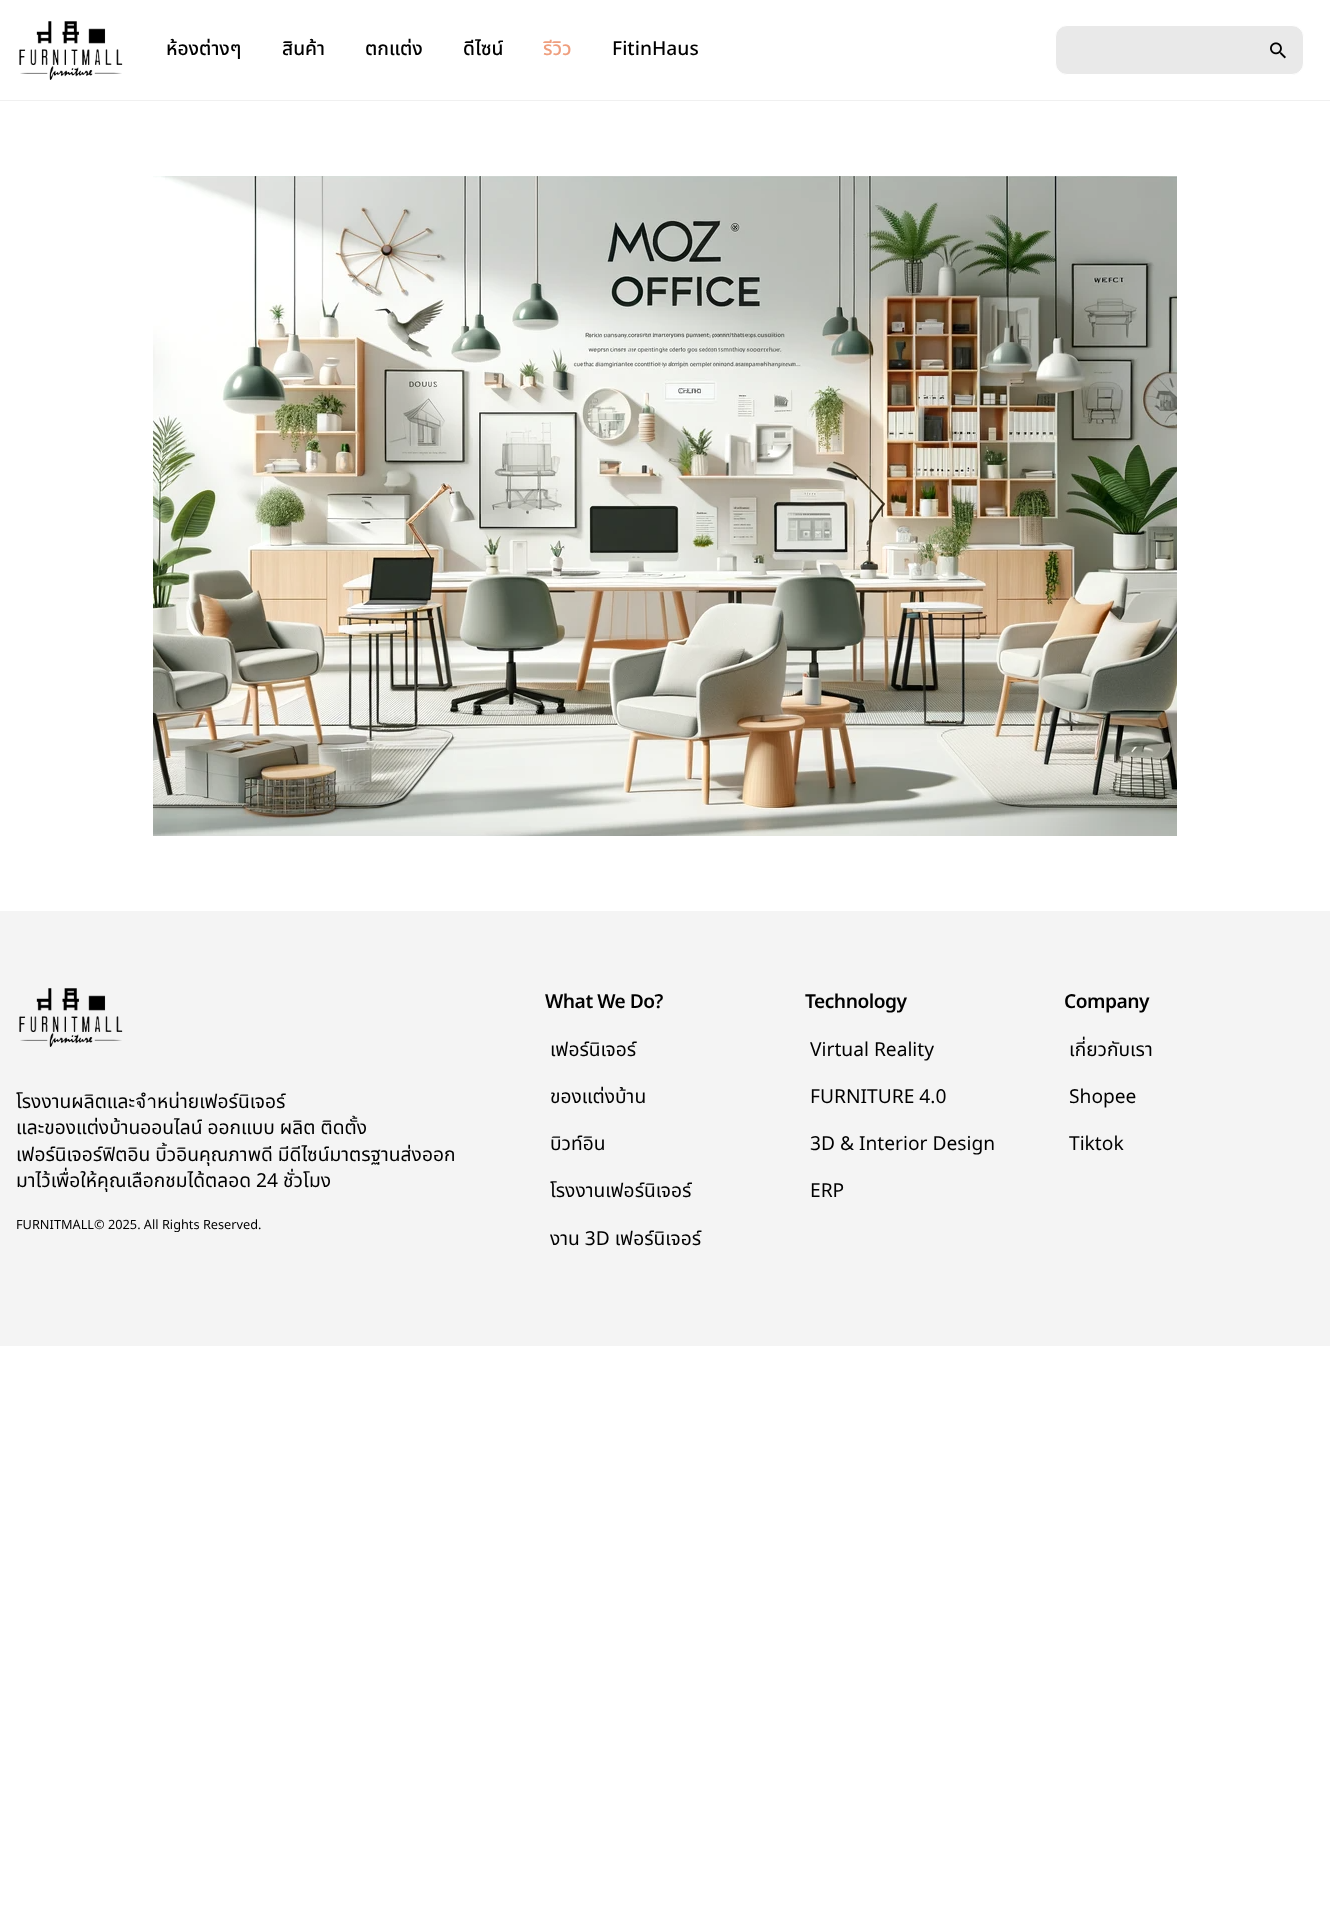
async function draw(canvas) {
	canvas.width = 1330;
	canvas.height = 1906;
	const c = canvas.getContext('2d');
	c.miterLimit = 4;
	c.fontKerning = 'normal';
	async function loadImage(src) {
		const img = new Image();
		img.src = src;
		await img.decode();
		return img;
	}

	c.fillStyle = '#fff';
	c.fillRect(0, 0, 1330, 1906);
	c.fillStyle = '#f0f0f0';
	c.fillRect(0, 100, 1330, 1);
	c.drawImage(await loadImage('img1.png'), 19, 21, 104, 59);
	c.font = '500 19.2px Noto Sans Thai';
	c.fillStyle = '#000';
	for (const [text, x, y] of [
		['ห้องต่างๆ', 166, 55],
		['สินค้า', 282, 55],
		['ตกแต่ง', 365, 55],
		['ดีไซน์', 463, 55],
	]) {
		c.fillText(text, x, y);
	}
	c.fillStyle = '#ef9f7e';
	c.fillText('รีวิว', 543, 55);
	c.fillStyle = '#000';
	c.fillText('FitinHaus', 612, 55);
	c.fillStyle = '#e9e9e9';
	c.beginPath();
	c.roundRect(1055.5, 25.5, 248, 49, 11.5);
	c.fill();
	c.strokeStyle = '#fff';
	c.stroke();
	c.drawImage(await loadImage('img2.png'), 1270, 42, 16, 17);
	c.drawImage(await loadImage('img3.png'), 153, 176, 1024, 660);
	c.fillStyle = '#f4f4f4';
	c.fillRect(0, 911, 1330, 435);
	c.drawImage(await loadImage('img4.png'), 19, 988, 104, 59);
	c.font = '19.2px Noto Sans Thai';
	c.fillStyle = '#000';
	for (const [text, x, y] of [
		['โรงงานผลิตและจำหน่ายเฟอร์นิเจอร์', 16, 1108],
		['และของแต่งบ้านออนไลน์ ออกแบบ ผลิต ติดตั้ง', 16, 1134],
		['เฟอร์นิเจอร์ฟิตอิน บิ้วอินคุณภาพดี มีดีไซน์มาตรฐานส่งออก', 16, 1161],
		['มาไว้เพื่อให้คุณเลือกชมได้ตลอด 24 ชั่วโมง', 16, 1187],
	]) {
		c.fillText(text, x, y);
	}
	c.font = '12.75px Noto Sans Thai';
	c.fillText('FURNITMALL© 2025. All Rights Reserved.', 16, 1229);
	c.letterSpacing = '-0.5px';
	c.font = '600 19.2px Noto Sans Thai';
	c.fillText('What We Do?', 545, 1008);
	c.letterSpacing = '0px';
	c.font = '19.2px Noto Sans Thai';
	for (const [text, x, y] of [
		['เฟอร์นิเจอร์', 550, 1056],
		['ของแต่งบ้าน', 550, 1103],
		['บิวท์อิน', 550, 1150],
		['โรงงานเฟอร์นิเจอร์', 550, 1197],
		['งาน 3D เฟอร์นิเจอร์', 550, 1245],
	]) {
		c.fillText(text, x, y);
	}
	c.letterSpacing = '-0.5px';
	c.font = '600 19.2px Noto Sans Thai';
	c.fillText('Technology', 805, 1008);
	c.letterSpacing = '0px';
	c.font = '19.2px Noto Sans Thai';
	for (const [text, x, y] of [
		['Virtual Reality', 810, 1056],
		['FURNITURE 4.0', 810, 1103],
		['3D & Interior Design', 810, 1150],
		['ERP', 810, 1197],
	]) {
		c.fillText(text, x, y);
	}
	c.letterSpacing = '-0.5px';
	c.font = '600 19.2px Noto Sans Thai';
	c.fillText('Company', 1064, 1008);
	c.letterSpacing = '0px';
	c.font = '19.2px Noto Sans Thai';
	for (const [text, x, y] of [
		['เกี่ยวกับเรา', 1069, 1056],
		['Shopee', 1069, 1103],
		['Tiktok', 1069, 1150],
	]) {
		c.fillText(text, x, y);
	}
}

draw(document.querySelector('canvas'));
